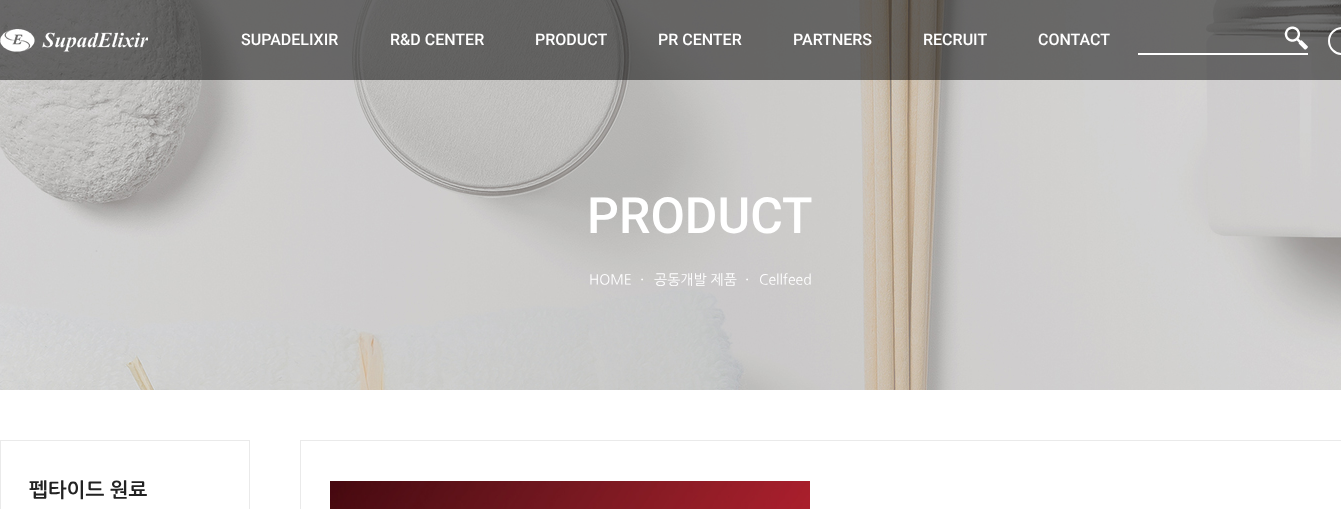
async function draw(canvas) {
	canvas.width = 1341;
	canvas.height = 509;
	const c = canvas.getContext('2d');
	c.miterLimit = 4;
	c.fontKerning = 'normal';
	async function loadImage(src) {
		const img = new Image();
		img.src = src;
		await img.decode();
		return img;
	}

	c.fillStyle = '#fff';
	c.fillRect(0, 0, 1341, 509);
	c.drawImage(await loadImage('img3.png'), 0, 0, 1341, 390);
	c.fillStyle = '#00000080';
	c.fillRect(0, 0, 1341, 80);
	c.drawImage(await loadImage('img1.png'), 0, 29, 148, 23);
	c.font = '500 16px Roboto';
	c.fillStyle = '#fff';
	for (const [text, x, y] of [
		['SUPADELIXIR', 241, 45],
		['R&D CENTER', 390, 45],
		['PRODUCT', 535, 45],
		['PR CENTER', 658, 45],
		['PARTNERS', 793, 45],
		['RECRUIT', 923, 45],
		['CONTACT', 1038, 45],
	]) {
		c.fillText(text, x, y);
	}
	c.fillRect(1138, 53, 146, 2);
	c.drawImage(await loadImage('img2.png'), 1284, 26, 24, 29);
	c.beginPath();
	c.roundRect(1329, 28, 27, 26, 13);
	c.strokeStyle = '#fff';
	c.lineWidth = 2;
	c.stroke();
	c.font = '500 50px Roboto';
	c.fillText('PRODUCT', 587, 233);
	c.font = '14px NanumGothic';
	c.fillText('HOME', 589, 284);
	c.drawImage(await loadImage('img4.png'), 641, 278, 2, 3);
	c.fillText('공동개발 제품', 654, 284);
	c.drawImage(await loadImage('img5.png'), 746, 278, 2, 3);
	c.fillText('Cellfeed', 759, 284);
	c.strokeStyle = '#eaeaea';
	c.lineWidth = 1;
	c.strokeRect(0.5, 440.5, 249, 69);
	c.font = 'bold 20px NanumGothic';
	c.fillStyle = '#222';
	c.fillText('펩타이드 원료', 29, 496);
	c.strokeRect(300.5, 440.5, 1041, 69);
	c.drawImage(await loadImage('img6.png'), 330, 481, 480, 28);
}

draw(document.querySelector('canvas'));
